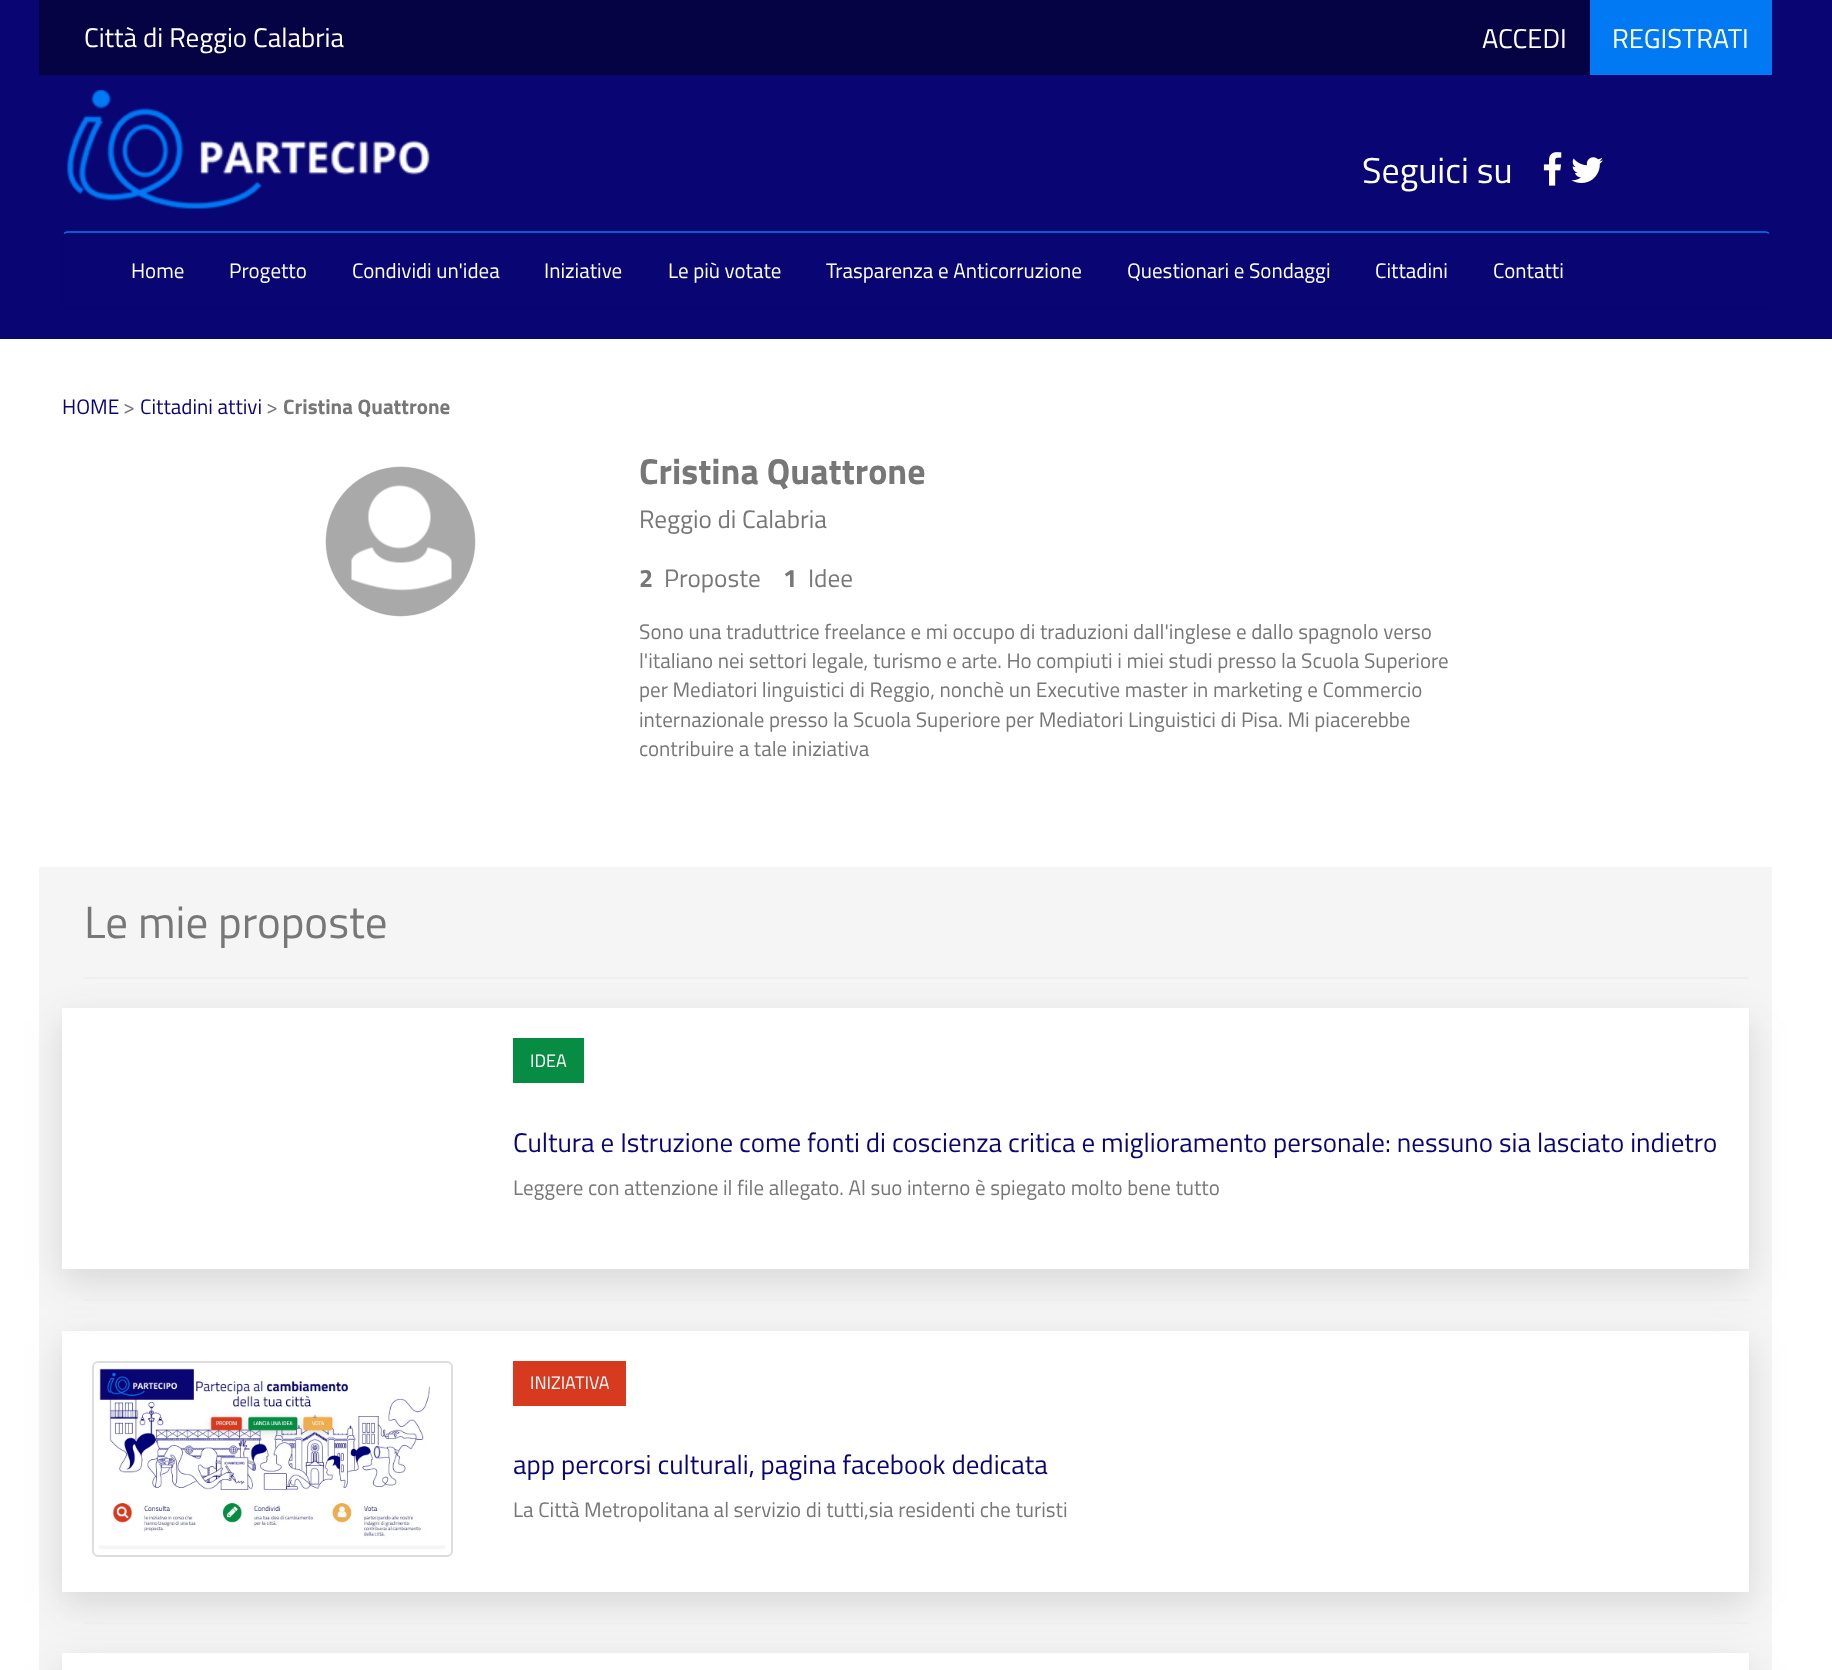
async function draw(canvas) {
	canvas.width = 1832;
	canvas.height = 1670;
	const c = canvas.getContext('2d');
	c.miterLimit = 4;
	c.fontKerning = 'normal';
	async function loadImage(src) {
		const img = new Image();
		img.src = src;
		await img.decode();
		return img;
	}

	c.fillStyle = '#fff';
	c.fillRect(0, 0, 1832, 1670);
	c.fillStyle = '#090673';
	c.fillRect(0, 0, 1832, 339);
	c.fillStyle = '#050343';
	c.fillRect(39, 0, 1551, 75);
	c.font = '27px Titillium Web';
	c.fillStyle = '#fff';
	c.fillText('Città di Reggio Calabria', 84, 47);
	c.font = '27.25px Titillium Web';
	c.fillText('ACCEDI', 1482, 48);
	c.fillStyle = '#0079f2';
	c.fillRect(1590, 0, 182, 75);
	c.fillStyle = '#fff';
	c.fillText('REGISTRATI', 1612, 48);
	c.drawImage(await loadImage('img1.png'), 67, 89, 363, 120);
	c.font = '36px Titillium Web';
	c.fillText('Seguici su', 1362, 183);
	c.drawImage(await loadImage('img2.png'), 1543, 152, 19, 34);
	c.drawImage(await loadImage('img3.png'), 1571, 157, 32, 26);
	c.beginPath();
	c.moveTo(64, 233.5);
	c.bezierCurveTo(65, 232.5, 66, 232, 67.5, 232);
	c.lineTo(1765.5, 232);
	c.bezierCurveTo(1767, 232, 1768, 232.5, 1769, 233.5);
	c.strokeStyle = '#0079f2';
	c.lineWidth = 1.5;
	c.stroke();
	c.beginPath();
	c.moveTo(1769, 233.5);
	c.bezierCurveTo(1770, 234.5, 1771, 235.5, 1771, 237);
	c.lineTo(1771, 303);
	c.bezierCurveTo(1771, 304.5, 1770, 305.5, 1769, 306.5);
	c.bezierCurveTo(1768, 307.5, 1767, 308, 1765.5, 308);
	c.lineTo(67.5, 308);
	c.bezierCurveTo(66, 308, 65, 307.5, 64, 306.5);
	c.bezierCurveTo(63, 305.5, 62, 304.5, 62, 303);
	c.lineTo(62, 237);
	c.bezierCurveTo(62, 235.5, 63, 234.5, 64, 233.5);
	c.strokeStyle = '#090673';
	c.stroke();
	c.font = '21px Titillium Web';
	for (const [text, x, y] of [
		['Home', 131, 278],
		['Progetto', 229, 278],
		['Condividi un\'idea', 352, 278],
		['Iniziative', 544, 278],
		['Le più votate', 668, 278],
		['Trasparenza e Anticorruzione', 826, 278],
		['Questionari e Sondaggi', 1127, 278],
		['Cittadini', 1375, 278],
		['Contatti', 1493, 278],
	]) {
		c.fillText(text, x, y);
	}
	c.fillStyle = '#090673';
	c.fillText('HOME', 62, 414);
	c.fillStyle = '#777';
	c.fillText('>', 123, 414);
	c.fillStyle = '#090673';
	c.fillText('Cittadini attivi', 140, 414);
	c.fillStyle = '#777';
	c.fillText('>', 266, 414);
	c.font = 'bold 21px Titillium Web';
	c.fillText('Cristina Quattrone', 283, 414);
	c.drawImage(await loadImage('img4.png'), 325, 466, 151, 151);
	c.font = 'bold 36px Titillium Web';
	c.fillText('Cristina Quattrone', 639, 484);
	c.font = '25.25px Titillium Web';
	c.fillText('Reggio di Calabria', 639, 528);
	c.font = 'bold 25.25px Titillium Web';
	c.fillText('2', 639, 587);
	c.font = '25.25px Titillium Web';
	c.fillText('Proposte', 664, 587);
	c.font = 'bold 25.25px Titillium Web';
	c.fillText('1', 783, 587);
	c.font = '25.25px Titillium Web';
	c.fillText('Idee', 808, 587);
	c.font = '21px Titillium Web';
	for (const [text, x, y] of [
		['Sono una traduttrice freelance e mi occupo di traduzioni dall\'inglese e dallo spagnolo verso', 639, 639],
		['l\'italiano nei settori legale, turismo e arte. Ho compiuti i miei studi presso la Scuola Superiore', 639, 668],
		['per Mediatori linguistici di Reggio, nonchè un Executive master in marketing e Commercio', 639, 697],
		['internazionale presso la Scuola Superiore per Mediatori Linguistici di Pisa. Mi piacerebbe', 639, 727],
		['contribuire a tale iniziativa', 639, 756],
	]) {
		c.fillText(text, x, y);
	}
	c.fillStyle = '#f5f5f5';
	c.fillRect(39, 867, 1733, 803);
	c.font = '45px Titillium Web';
	c.fillStyle = '#777';
	c.fillText('Le mie proposte', 84, 938);
	c.fillStyle = '#32323226';
	c.filter = 'blur(18px)';
	c.beginPath();
	c.rect(62, 1020, 1687, 261);
	c.fill();
	c.filter = 'none';
	for (const [x, y, w, h, color] of [
		[84, 977, 1665, 2, '#eee'],
		[62, 1008, 1687, 261, '#fff'],
		[513, 1038, 71, 45, '#078d43'],
	]) {
		c.fillStyle = color;
		c.fillRect(x, y, w, h);
	}
	c.font = '18px Titillium Web';
	c.fillStyle = '#fff';
	c.fillText('IDEA', 530, 1067);
	c.font = '27px Titillium Web';
	c.fillStyle = '#090673';
	c.fillText('Cultura e Istruzione come fonti di coscienza critica e miglioramento personale: nessuno sia lasciato indietro', 513, 1152);
	c.font = '21px Titillium Web';
	c.fillStyle = '#777';
	c.fillText('Leggere con attenzione il file allegato. Al suo interno è spiegato molto bene tutto', 513, 1195);
	c.fillStyle = '#32323226';
	c.filter = 'blur(18px)';
	c.beginPath();
	c.rect(62, 1343, 1687, 261);
	c.fill();
	c.filter = 'none';
	c.fillStyle = '#eee';
	c.fillRect(84, 1299, 1665, 2);
	c.fillStyle = '#fff';
	c.fillRect(62, 1331, 1687, 261);
	c.beginPath();
	c.roundRect(93, 1362, 359, 194, 5);
	c.strokeStyle = '#ddd';
	c.lineWidth = 2;
	c.stroke();
	c.drawImage(await loadImage('img5.png'), 99, 1368, 346, 181);
	c.fillStyle = '#d83a20';
	c.fillRect(513, 1361, 113, 45);
	c.font = '18px Titillium Web';
	c.fillStyle = '#fff';
	c.fillText('INIZIATIVA', 530, 1389);
	c.font = '27px Titillium Web';
	c.fillStyle = '#090673';
	c.fillText('app percorsi culturali, pagina facebook dedicata', 513, 1474);
	c.font = '21px Titillium Web';
	c.fillStyle = '#777';
	c.fillText('La Città Metropolitana al servizio di tutti,sia residenti che turisti', 513, 1517);
	c.fillStyle = '#32323226';
	c.filter = 'blur(18px)';
	c.beginPath();
	c.rect(62, 1665, 1687, 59);
	c.fill();
	c.filter = 'none';
	c.fillStyle = '#fff';
	c.fillRect(62, 1653, 1687, 17);
	c.fillStyle = '#eee';
	c.fillRect(84, 1622, 1665, 2);
}

draw(document.querySelector('canvas'));
